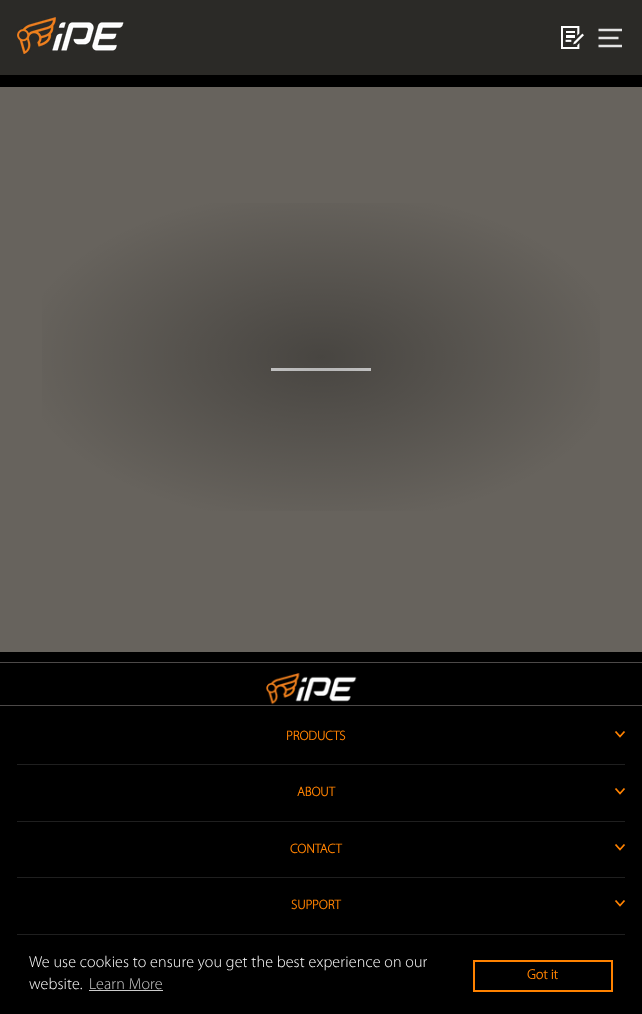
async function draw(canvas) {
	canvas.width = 642;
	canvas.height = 1014;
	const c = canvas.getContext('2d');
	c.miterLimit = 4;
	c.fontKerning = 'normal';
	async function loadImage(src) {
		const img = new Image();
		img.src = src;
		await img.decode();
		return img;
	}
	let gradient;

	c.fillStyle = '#000';
	c.fillRect(0, 0, 642, 1014);
	c.fillStyle = '#2b2a27';
	c.fillRect(0, 0, 642, 75);
	c.drawImage(await loadImage('img1.png'), 17, 17, 107, 38);
	c.drawImage(await loadImage('img2.png'), 561, 26, 23, 23);
	c.beginPath();
	c.moveTo(598.5, 30);
	c.lineTo(622, 30);
	c.moveTo(598.5, 38);
	c.lineTo(618.5, 38);
	c.moveTo(598.5, 46);
	c.lineTo(622, 46);
	c.strokeStyle = '#e3e3e3';
	c.lineWidth = 2.3;
	c.stroke();
	c.fillStyle = '#67635d';
	c.fillRect(0, 87, 642, 565);
	c.fillStyle = '#fff';
	c.fillRect(271, 368, 100, 3);
	gradient = c.createRadialGradient(321, 646.67, 0, 321, 646.67, 509);
	gradient.addColorStop(0, '#0000004d');
	gradient.addColorStop(0.6, '#00000000');
	c.fillStyle = gradient;
	c.beginPath();
	c.rect(42, 203, 558, 308);
	c.save();
	c.clip();
	c.scale(1, 281 / 509);
	c.fillRect(0, 0, 642, 1837);
	c.restore();
	c.fillStyle = '#4c4948';
	c.fillRect(0, 662, 642, 1);
	c.drawImage(await loadImage('img3.png'), 266, 673, 91, 32);
	c.fillRect(0, 705, 642, 1);
	c.font = 'bold 13.25px Myriad';
	c.fillStyle = '#ff8200';
	c.fillText('PRODUCTS', 286, 740);
	c.beginPath();
	c.moveTo(615.5, 731.5);
	c.lineTo(620, 736.5);
	c.lineTo(624.5, 731.5);
	c.strokeStyle = '#ff8200';
	c.lineWidth = 1.8;
	c.stroke();
	c.fillStyle = '#1f1f1f';
	c.fillRect(17, 764, 608, 1);
	c.fillStyle = '#ff8200';
	c.fillText('ABOUT', 297, 796);
	c.beginPath();
	c.moveTo(615.5, 788.5);
	c.lineTo(620, 793.5);
	c.lineTo(624.5, 788.5);
	c.stroke();
	c.fillStyle = '#1f1f1f';
	c.fillRect(17, 821, 608, 1);
	c.fillStyle = '#ff8200';
	c.fillText('CONTACT', 290, 853);
	c.beginPath();
	c.moveTo(615.5, 844.5);
	c.lineTo(620, 849.5);
	c.lineTo(624.5, 844.5);
	c.stroke();
	c.fillStyle = '#1f1f1f';
	c.fillRect(17, 877, 608, 1);
	c.fillStyle = '#ff8200';
	c.fillText('SUPPORT', 291, 909);
	c.beginPath();
	c.moveTo(615.5, 900.5);
	c.lineTo(620, 905.5);
	c.lineTo(624.5, 900.5);
	c.stroke();
	c.fillStyle = '#1f1f1f';
	c.fillRect(17, 934, 608, 1);
	c.letterSpacing = '0.15px';
	c.font = '300 16px Myriad';
	c.fillStyle = '#fff';
	c.fillText('We use cookies to ensure you get the best experience on our', 29, 967);
	c.fillText('website.', 29, 989);
	c.fillStyle = '#ccc';
	c.fillText('Learn More', 89, 989);
	c.fillRect(89, 990, 74, 1);
	c.lineWidth = 2;
	c.strokeRect(474, 961, 138, 30);
	c.letterSpacing = '0px';
	c.font = 'bold 14px Myriad';
	c.fillStyle = '#ff8200';
	c.fillText('Got it', 527, 979);
}

draw(document.querySelector('canvas'));
